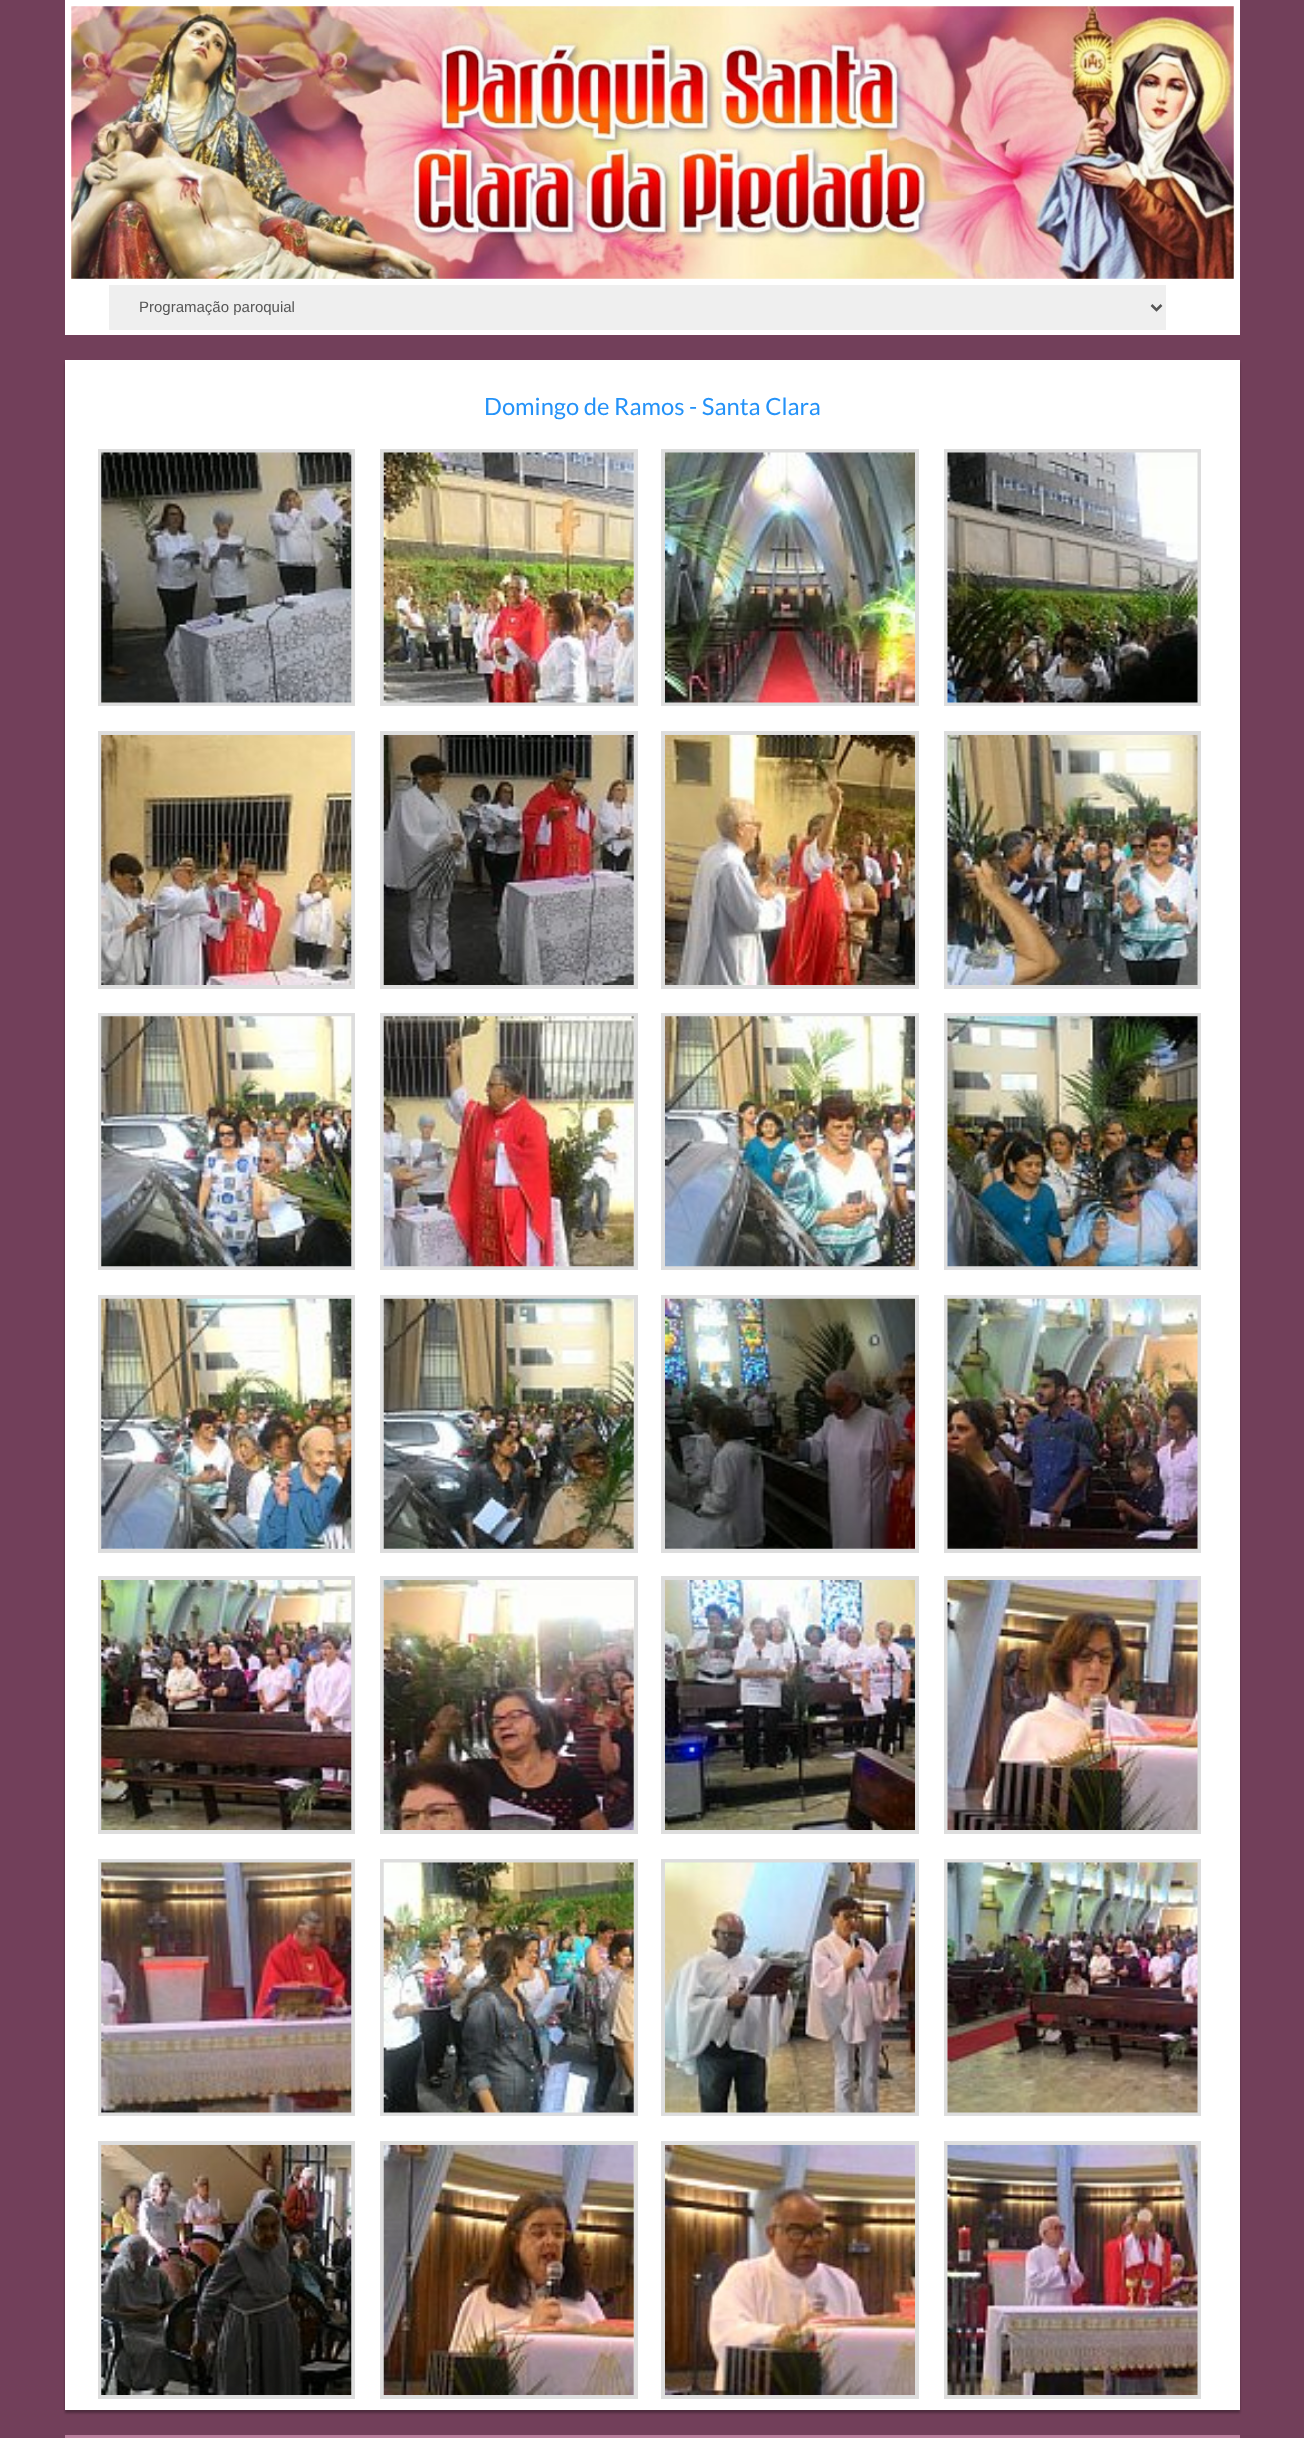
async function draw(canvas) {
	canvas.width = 1304;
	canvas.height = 2438;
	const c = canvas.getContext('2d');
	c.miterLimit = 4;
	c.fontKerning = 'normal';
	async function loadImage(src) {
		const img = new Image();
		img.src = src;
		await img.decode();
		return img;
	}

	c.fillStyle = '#723f5a';
	c.fillRect(0, 0, 1304, 2438);
	c.fillStyle = '#fff';
	c.fillRect(65, 0, 1175, 335);
	c.drawImage(await loadImage('img1.png'), 71, 6, 1163, 273);
	c.fillStyle = '#efefef';
	c.fillRect(109, 285, 1057, 45);
	c.beginPath();
	c.moveTo(1151.5, 305);
	c.lineTo(1156.5, 310);
	c.lineTo(1161.5, 305);
	c.strokeStyle = '#555';
	c.lineWidth = 2.5;
	c.stroke();
	c.font = '15px Liberation Sans';
	c.fillStyle = '#555';
	c.fillText('Programação paroquial', 139, 312);
	c.fillStyle = '#0000004d';
	c.filter = 'blur(1px)';
	c.beginPath();
	c.rect(65, 363, 1175, 2050);
	c.fill();
	c.filter = 'none';
	c.fillStyle = '#fff';
	c.fillRect(65, 360, 1175, 2050);
	c.font = '23.75px Lato';
	c.fillStyle = '#2492f8';
	c.fillText('Domingo de Ramos - Santa Clara', 484, 415);
	c.strokeStyle = '#ddd';
	c.lineWidth = 4;
	c.strokeRect(100, 451, 253, 253);
	c.drawImage(await loadImage('img2.png'), 101, 452, 251, 251);
	c.strokeRect(382, 451, 254, 253);
	c.drawImage(await loadImage('img3.png'), 383, 452, 251, 251);
	c.strokeRect(663, 451, 254, 253);
	c.drawImage(await loadImage('img4.png'), 665, 452, 250, 251);
	c.strokeRect(946, 451, 253, 253);
	c.drawImage(await loadImage('img5.png'), 947, 452, 251, 251);
	c.strokeRect(100, 733, 253, 254);
	c.drawImage(await loadImage('img6.png'), 101, 735, 251, 250);
	c.strokeRect(382, 733, 254, 254);
	c.drawImage(await loadImage('img7.png'), 383, 735, 251, 250);
	c.strokeRect(663, 733, 254, 254);
	c.drawImage(await loadImage('img8.png'), 665, 735, 250, 250);
	c.strokeRect(946, 733, 253, 254);
	c.drawImage(await loadImage('img9.png'), 947, 735, 251, 250);
	c.strokeRect(100, 1015, 253, 253);
	c.drawImage(await loadImage('img10.png'), 101, 1016, 251, 251);
	c.strokeRect(382, 1015, 254, 253);
	c.drawImage(await loadImage('img11.png'), 383, 1016, 251, 251);
	c.strokeRect(663, 1015, 254, 253);
	c.drawImage(await loadImage('img12.png'), 665, 1016, 250, 251);
	c.strokeRect(946, 1015, 253, 253);
	c.drawImage(await loadImage('img13.png'), 947, 1016, 251, 251);
	c.strokeRect(100, 1297, 253, 254);
	c.drawImage(await loadImage('img14.png'), 101, 1298, 251, 251);
	c.strokeRect(382, 1297, 254, 254);
	c.drawImage(await loadImage('img15.png'), 383, 1298, 251, 251);
	c.strokeRect(663, 1297, 254, 254);
	c.drawImage(await loadImage('img16.png'), 665, 1298, 250, 251);
	c.strokeRect(946, 1297, 253, 254);
	c.drawImage(await loadImage('img17.png'), 947, 1298, 251, 251);
	c.strokeRect(100, 1578, 253, 254);
	c.drawImage(await loadImage('img18.png'), 101, 1580, 251, 250);
	c.strokeRect(382, 1578, 254, 254);
	c.drawImage(await loadImage('img19.png'), 383, 1580, 251, 250);
	c.strokeRect(663, 1578, 254, 254);
	c.drawImage(await loadImage('img20.png'), 665, 1580, 250, 250);
	c.strokeRect(946, 1578, 253, 254);
	c.drawImage(await loadImage('img21.png'), 947, 1580, 251, 250);
	c.strokeRect(100, 1861, 253, 253);
	c.drawImage(await loadImage('img22.png'), 101, 1862, 251, 251);
	c.strokeRect(382, 1861, 254, 253);
	c.drawImage(await loadImage('img23.png'), 383, 1862, 251, 251);
	c.strokeRect(663, 1861, 254, 253);
	c.drawImage(await loadImage('img24.png'), 665, 1862, 250, 251);
	c.strokeRect(946, 1861, 253, 253);
	c.drawImage(await loadImage('img25.png'), 947, 1862, 251, 251);
	c.strokeRect(100, 2143, 253, 254);
	c.drawImage(await loadImage('img26.png'), 101, 2145, 251, 250);
	c.strokeRect(382, 2143, 254, 254);
	c.drawImage(await loadImage('img27.png'), 383, 2145, 251, 250);
	c.strokeRect(663, 2143, 254, 254);
	c.drawImage(await loadImage('img28.png'), 665, 2145, 250, 250);
	c.strokeRect(946, 2143, 253, 254);
	c.drawImage(await loadImage('img29.png'), 947, 2145, 251, 250);
	c.fillStyle = '#b87e9c';
	c.fillRect(65, 2435, 1175, 3);
}

draw(document.querySelector('canvas'));
